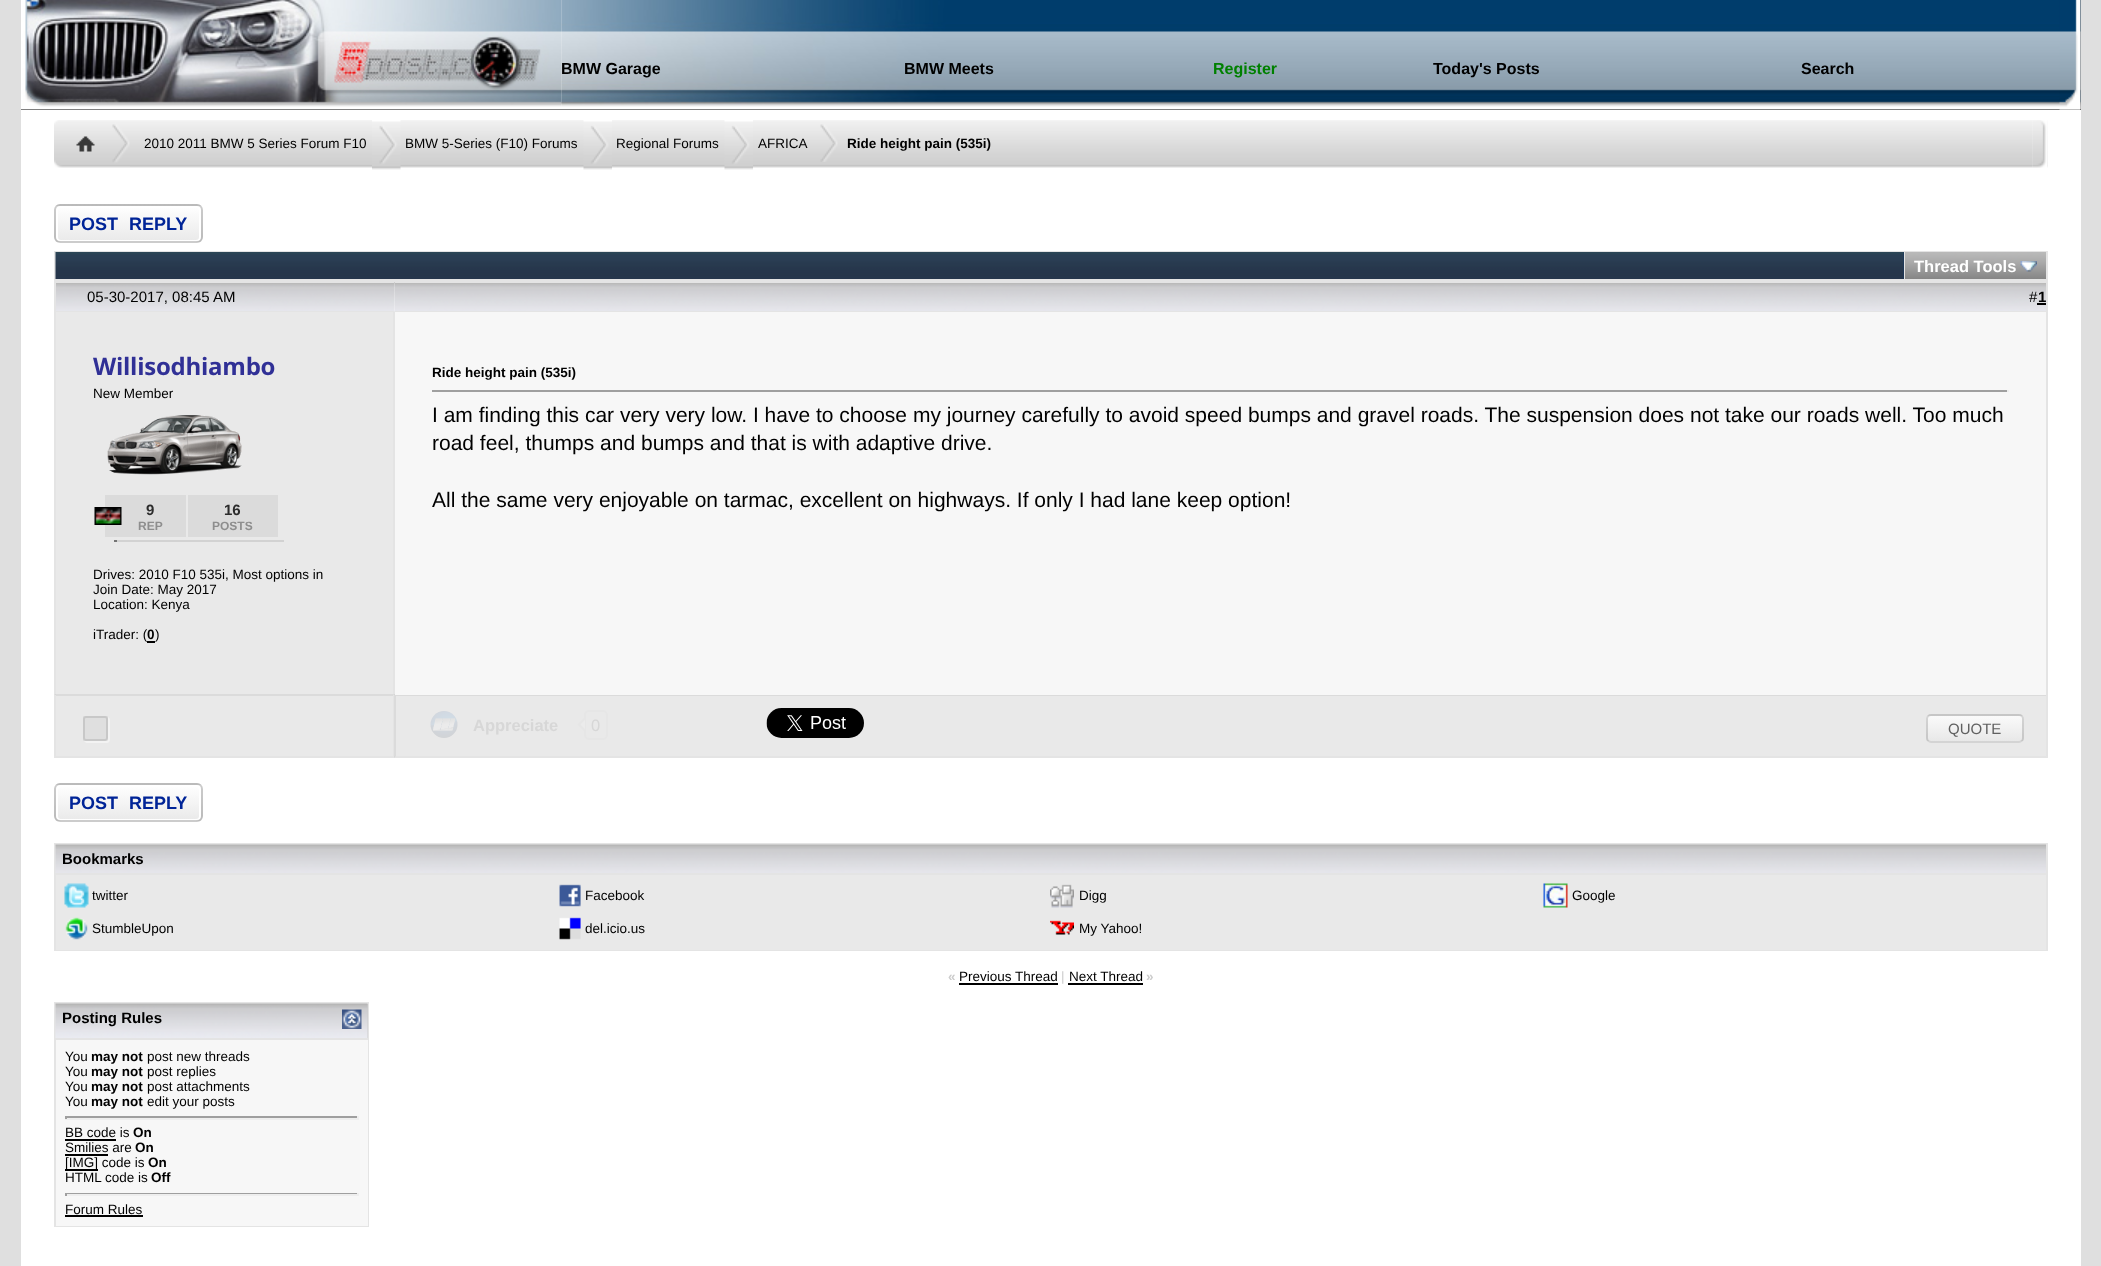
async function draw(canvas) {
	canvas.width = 2101;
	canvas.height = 1266;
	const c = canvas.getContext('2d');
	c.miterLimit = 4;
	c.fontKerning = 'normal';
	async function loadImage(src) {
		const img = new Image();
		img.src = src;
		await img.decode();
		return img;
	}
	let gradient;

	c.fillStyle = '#dfdfdf';
	c.fillRect(0, 0, 2101, 1266);
	c.fillStyle = '#000';
	c.fillRect(561, 0, 1520, 110);
	c.drawImage(await loadImage('img1.png'), 561, 0, 1520, 110);
	c.fillRect(21, 109, 540, 1);
	c.drawImage(await loadImage('img2.png'), 21, 0, 540, 110);
	c.font = 'bold 16px Liberation Sans';
	c.fillText('BMW Garage', 561, 74);
	c.fillText('BMW Meets', 904, 74);
	c.fillStyle = '#008000';
	c.fillText('Register', 1213, 74);
	c.fillStyle = '#000';
	c.fillText('Today\'s Posts', 1433, 74);
	c.fillText('Search', 1801, 74);
	c.drawImage(await loadImage('img3.png'), 2059, 0, 22, 110);
	c.fillStyle = '#fff';
	c.fillRect(21, 110, 2060, 1156);
	c.drawImage(await loadImage('img4.png'), 130, 120, 14, 48);
	c.drawImage(await loadImage('img5.png'), 54, 120, 76, 48);
	c.drawImage(await loadImage('img6.png'), 144, 120, 1889, 48);
	c.font = '13.5px Liberation Sans';
	c.fillStyle = '#000';
	c.fillText('2010 2011 BMW 5 Series Forum F10', 144, 148);
	c.drawImage(await loadImage('img7.png'), 372, 120, 29, 50);
	c.fillText('BMW 5-Series (F10) Forums', 405, 148);
	c.drawImage(await loadImage('img8.png'), 583, 120, 29, 50);
	c.fillText('Regional Forums', 616, 148);
	c.drawImage(await loadImage('img8.png'), 724, 120, 29, 50);
	c.fillText('AFRICA', 758, 148);
	c.drawImage(await loadImage('img9.png'), 820, 124, 18, 38);
	c.font = 'bold 13.5px Liberation Sans';
	c.fillText('Ride height pain (535i)', 847, 148);
	c.drawImage(await loadImage('img10.png'), 2032, 120, 16, 48);
	c.drawImage(await loadImage('img11.png'), 2032, 120, 16, 48);
	c.save();
	c.beginPath();
	c.roundRect(54, 204, 149, 39, 6);
	c.clip();
	gradient = c.createLinearGradient(128, 170, 128, 206);
	gradient.addColorStop(0, '#fff');
	gradient.addColorStop(1, '#e9e9e9');
	c.fillStyle = gradient;
	c.fillRect(54, 204, 149, 2);
	gradient = c.createLinearGradient(128, 206, 128, 242);
	gradient.addColorStop(0, '#fff');
	gradient.addColorStop(1, '#e9e9e9');
	c.fillStyle = gradient;
	c.fillRect(54, 206, 149, 36);
	c.restore();
	c.beginPath();
	c.roundRect(57, 207, 143, 34, 4);
	c.strokeStyle = '#fff';
	c.lineWidth = 2;
	c.stroke();
	c.beginPath();
	c.roundRect(55, 205, 147, 37, 5);
	c.strokeStyle = '#00000033';
	c.stroke();
	c.wordSpacing = '6px';
	c.font = 'bold 18px Liberation Sans';
	c.fillStyle = '#002497';
	c.fillText('POST REPLY', 69, 230);
	c.fillStyle = '#e4e4e4';
	c.fillRect(54, 251, 1994, 30);
	c.fillStyle = '#16365e';
	c.fillRect(1903, 252, 1, 27);
	c.drawImage(await loadImage('img12.png'), 55, 252, 1849, 27);
	c.drawImage(await loadImage('img13.png'), 1905, 252, 141, 27);
	c.wordSpacing = '0px';
	c.font = 'bold 16.5px Liberation Sans';
	c.fillStyle = '#fff';
	c.fillText('Thread Tools', 1914, 272);
	c.drawImage(await loadImage('img14.png'), 2020, 261, 17, 11);
	c.drawImage(await loadImage('img15.png'), 56, 283, 339, 28);
	for (const [x, y, w, h, color] of [
		[54, 281, 341, 2, '#e4e4e4'],
		[54, 311, 341, 1, '#e4e4e4'],
		[54, 281, 2, 414, '#e4e4e4'],
	]) {
		c.fillStyle = color;
		c.fillRect(x, y, w, h);
	}
	c.font = '15px Liberation Sans';
	c.fillStyle = '#000';
	c.fillText('05-30-2017, 08:45 AM', 87, 302);
	c.drawImage(await loadImage('img16.png'), 394, 282, 1652, 30);
	for (const [x, y, w, h, color] of [
		[395, 281, 1653, 2, '#e4e4e4'],
		[2046, 281, 2, 31, '#e4e4e4'],
		[395, 311, 1653, 1, '#e4e4e4'],
	]) {
		c.fillStyle = color;
		c.fillRect(x, y, w, h);
	}
	c.fillStyle = '#000';
	c.fillText('#', 2029, 302);
	c.font = 'bold 15px Liberation Sans';
	c.fillText('1', 2038, 302);
	for (const [x, y, w, h, color] of [
		[2037, 303, 9, 2, '#000'],
		[56, 312, 337, 383, '#e9e9e9'],
		[393, 312, 2, 383, '#e4e4e4'],
	]) {
		c.fillStyle = color;
		c.fillRect(x, y, w, h);
	}
	c.letterSpacing = '-0.25px';
	c.font = 'bold 24px Open Sans';
	c.fillStyle = '#303096';
	c.fillText('Willisodhiambo', 93, 375);
	c.letterSpacing = '0px';
	c.font = '13.5px Liberation Sans';
	c.fillStyle = '#000';
	c.fillText('New Member', 93, 398);
	c.drawImage(await loadImage('img17.png'), 107, 415, 135, 60);
	c.fillStyle = '#dbdbdb';
	c.fillRect(105, 495, 81, 42);
	c.drawImage(await loadImage('img18.png'), 94, 507, 28, 18);
	c.font = 'bold 15px Liberation Sans';
	c.fillStyle = '#2c2c2c';
	c.fillText('9', 146, 515);
	c.font = 'bold 12px Liberation Sans';
	c.fillStyle = '#8e8e8e';
	c.fillText('REP', 138, 530);
	c.fillStyle = '#dbdbdb';
	c.fillRect(188, 495, 90, 42);
	c.font = 'bold 15px Liberation Sans';
	c.fillStyle = '#2c2c2c';
	c.fillText('16', 224, 515);
	c.font = 'bold 12px Liberation Sans';
	c.fillStyle = '#8e8e8e';
	c.fillText('POSTS', 212, 530);
	c.fillStyle = '#d2d2d2';
	c.fillRect(114, 540, 170, 2);
	c.fillStyle = '#747474';
	c.fillRect(114, 540, 3, 2);
	c.font = '13.5px Liberation Sans';
	c.fillStyle = '#000';
	for (const [text, x, y] of [
		['Drives: 2010 F10 535i, Most options in', 93, 579],
		['Join Date: May 2017', 93, 594],
		['Location: Kenya', 93, 609],
		['iTrader: (', 93, 639],
	]) {
		c.fillText(text, x, y);
	}
	c.font = 'bold 13.5px Liberation Sans';
	c.fillText('0', 147, 639);
	c.fillRect(147, 641, 8, 2);
	c.font = '13.5px Liberation Sans';
	c.fillText(')', 155, 639);
	c.fillStyle = '#e9e9e9';
	c.fillRect(55, 695, 340, 61);
	c.fillRect(395, 695, 1653, 63);
	c.fillStyle = '#0000000f';
	c.beginPath();
	c.moveTo(394, 694);
	c.lineTo(2048, 694);
	c.lineTo(2046, 696);
	c.lineTo(396, 696);
	c.closePath();
	c.fill();
	c.beginPath();
	c.moveTo(54, 694);
	c.lineTo(394, 694);
	c.lineTo(393, 696);
	c.lineTo(56, 696);
	c.closePath();
	c.fill();
	c.fillStyle = '#e4e4e4';
	c.beginPath();
	c.moveTo(394, 694);
	c.lineTo(394, 758);
	c.lineTo(393, 756);
	c.lineTo(393, 696);
	c.closePath();
	c.fill();
	c.fillRect(54, 756, 341, 2);
	c.beginPath();
	c.moveTo(2048, 694);
	c.lineTo(2048, 758);
	c.lineTo(2046, 756);
	c.lineTo(2046, 696);
	c.closePath();
	c.fill();
	c.beginPath();
	c.moveTo(2048, 758);
	c.lineTo(394, 758);
	c.lineTo(396, 756);
	c.lineTo(2046, 756);
	c.closePath();
	c.fill();
	c.fillStyle = '#0000000f';
	c.beginPath();
	c.moveTo(394, 758);
	c.lineTo(394, 694);
	c.lineTo(396, 696);
	c.lineTo(396, 756);
	c.closePath();
	c.fill();
	c.fillStyle = '#f7f7f7';
	c.fillRect(395, 312, 1651, 383);
	c.fillStyle = '#e4e4e4';
	c.fillRect(2046, 312, 2, 383);
	c.font = 'bold 13.5px Liberation Sans';
	c.fillStyle = '#000';
	c.fillText('Ride height pain (535i)', 432, 377);
	c.fillStyle = '#9f9f9f';
	c.fillRect(432, 390, 1577, 2);
	c.fillStyle = '#eee';
	c.fillRect(2007, 390, 2, 2);
	c.font = '21px Liberation Sans';
	c.fillStyle = '#000';
	for (const [text, x, y] of [
		['I am finding this car very very low. I have to choose my journey carefully to avoid speed bumps and gravel roads. The suspension does not take our roads well. Too much', 432, 422],
		['road feel, thumps and bumps and that is with adaptive drive.', 432, 450],
		['All the same very enjoyable on tarmac, excellent on highways. If only I had lane keep option!', 432, 507],
	]) {
		c.fillText(text, x, y);
	}
	c.fillStyle = '#e4e4e4';
	c.beginPath();
	c.moveTo(54, 758);
	c.lineTo(54, 694);
	c.lineTo(56, 696);
	c.lineTo(56, 756);
	c.closePath();
	c.fill();
	c.fillStyle = '#f3f3f3';
	c.beginPath();
	c.moveTo(84, 740.5);
	c.bezierCurveTo(84.5, 742, 85.5, 743, 87, 743);
	c.lineTo(107, 743);
	c.bezierCurveTo(108.5, 743, 110, 741.5, 110, 740);
	c.lineTo(110, 720);
	c.bezierCurveTo(110, 718.5, 109, 717.5, 107.5, 717);
	c.lineTo(108, 718.5);
	c.lineTo(108, 738);
	c.bezierCurveTo(108, 739.5, 106.5, 741, 105, 741);
	c.lineTo(85.5, 741);
	c.closePath();
	c.fill();
	c.fillStyle = '#0000000a';
	c.fillRect(83, 716, 25, 25);
	c.beginPath();
	c.roundRect(84, 717, 23, 23, 2);
	c.strokeStyle = '#0000001a';
	c.stroke();
	c.drawImage(await loadImage('img19.png'), 430, 711, 28, 27);
	c.font = 'bold 16.5px Liberation Sans';
	c.fillStyle = '#d7d7d7';
	c.fillText('Appreciate', 473, 731);
	c.beginPath();
	c.roundRect(585, 711, 22, 28, 4);
	c.strokeStyle = '#e6e6e6';
	c.stroke();
	c.fillStyle = '#e6e6e6';
	c.beginPath();
	c.moveTo(585, 717);
	c.lineTo(585, 732);
	c.lineTo(577.5, 724.5);
	c.closePath();
	c.fill();
	c.font = '16.5px Liberation Sans';
	c.fillStyle = '#d7d7d7';
	c.fillText('0', 591, 731);
	c.fillStyle = '#ebebeb';
	c.beginPath();
	c.moveTo(585, 720);
	c.lineTo(585, 729);
	c.lineTo(580.5, 724.5);
	c.closePath();
	c.fill();
	c.drawImage(await loadImage('img20.png'), 766, 708, 98, 30);
	c.save();
	c.beginPath();
	c.roundRect(1926, 714, 98, 29, 5);
	c.clip();
	gradient = c.createLinearGradient(1975, 716, 1975, 741);
	gradient.addColorStop(0, '#fafafa');
	gradient.addColorStop(1, '#e8e8e8');
	c.fillStyle = gradient;
	c.fillRect(1926, 716, 98, 25);
	gradient = c.createLinearGradient(1975, 741, 1975, 767);
	gradient.addColorStop(0, '#fafafa');
	gradient.addColorStop(1, '#e8e8e8');
	c.fillStyle = gradient;
	c.fillRect(1926, 741, 98, 2);
	c.restore();
	c.beginPath();
	c.roundRect(1927, 715, 96, 27, 4);
	c.strokeStyle = '#00000026';
	c.stroke();
	c.font = '15px Liberation Sans';
	c.fillStyle = '#606060';
	c.fillText('QUOTE', 1948, 734);
	c.save();
	c.beginPath();
	c.roundRect(54, 783, 149, 39, 6);
	c.clip();
	gradient = c.createLinearGradient(128, 749, 128, 785);
	gradient.addColorStop(0, '#fff');
	gradient.addColorStop(1, '#e9e9e9');
	c.fillStyle = gradient;
	c.fillRect(54, 783, 149, 2);
	gradient = c.createLinearGradient(128, 785, 128, 821);
	gradient.addColorStop(0, '#fff');
	gradient.addColorStop(1, '#e9e9e9');
	c.fillStyle = gradient;
	c.fillRect(54, 785, 149, 36);
	c.restore();
	c.beginPath();
	c.roundRect(57, 786, 143, 34, 4);
	c.strokeStyle = '#fff';
	c.stroke();
	c.beginPath();
	c.roundRect(55, 784, 147, 37, 5);
	c.strokeStyle = '#00000033';
	c.stroke();
	c.wordSpacing = '6px';
	c.font = 'bold 18px Liberation Sans';
	c.fillStyle = '#002497';
	c.fillText('POST REPLY', 69, 809);
	c.fillStyle = '#e4e4e4';
	c.fillRect(54, 843, 1994, 108);
	c.drawImage(await loadImage('img21.png'), 55, 844, 1991, 29);
	c.wordSpacing = '0px';
	c.font = 'bold 15px Liberation Sans';
	c.fillStyle = '#000';
	c.fillText('Bookmarks', 62, 864);
	c.fillStyle = '#e9e9e9';
	c.fillRect(56, 875, 1990, 75);
	c.drawImage(await loadImage('img22.png'), 64, 883, 25, 25);
	c.font = '13.5px Liberation Sans';
	c.fillStyle = '#000';
	c.fillText('twitter', 92, 900);
	c.drawImage(await loadImage('img23.png'), 559, 884, 22, 23);
	c.fillText('Facebook', 585, 900);
	c.drawImage(await loadImage('img24.png'), 1050, 884, 24, 24);
	c.fillText('Digg', 1079, 900);
	c.drawImage(await loadImage('img25.png'), 1543, 883, 25, 25);
	c.fillText('Google', 1572, 900);
	c.drawImage(await loadImage('img26.png'), 65, 917, 23, 23);
	c.fillText('StumbleUpon', 92, 933);
	c.drawImage(await loadImage('img27.png'), 559, 917, 22, 23);
	c.fillText('del.icio.us', 585, 933);
	c.drawImage(await loadImage('img28.png'), 1050, 920, 24, 15);
	c.fillText('My Yahoo!', 1079, 933);
	c.font = 'bold 13.5px Liberation Sans';
	c.fillStyle = '#ccc';
	c.fillText('«', 948, 981);
	c.font = '13.5px Liberation Sans';
	c.fillStyle = '#000';
	c.fillText('Previous Thread', 959, 981);
	c.fillRect(959, 983, 99, 2);
	c.fillStyle = '#ccc';
	c.fillText('|', 1061, 981);
	c.fillStyle = '#000';
	c.fillText('Next Thread', 1069, 981);
	c.fillRect(1068, 983, 75, 2);
	c.font = 'bold 13.5px Liberation Sans';
	c.fillStyle = '#ccc';
	c.fillText('»', 1146, 981);
	c.fillStyle = '#e4e4e4';
	c.fillRect(54, 1002, 315, 225);
	c.fillStyle = '#ccc';
	c.fillRect(367, 1004, 1, 34);
	c.drawImage(await loadImage('img29.png'), 55, 1003, 313, 35);
	c.font = 'bold 15px Liberation Sans';
	c.fillStyle = '#000';
	c.fillText('Posting Rules', 62, 1023);
	c.drawImage(await loadImage('img30.png'), 342, 1009, 20, 20);
	c.fillStyle = '#f7f7f7';
	c.fillRect(56, 1040, 312, 186);
	c.font = '13.5px Liberation Sans';
	c.fillStyle = '#000';
	c.fillText('You', 65, 1061);
	c.font = 'bold 13.5px Liberation Sans';
	c.fillText('may not', 91, 1061);
	c.font = '13.5px Liberation Sans';
	c.fillText('post new threads', 147, 1061);
	c.fillText('You', 65, 1076);
	c.font = 'bold 13.5px Liberation Sans';
	c.fillText('may not', 91, 1076);
	c.font = '13.5px Liberation Sans';
	c.fillText('post replies', 147, 1076);
	c.fillText('You', 65, 1091);
	c.font = 'bold 13.5px Liberation Sans';
	c.fillText('may not', 91, 1091);
	c.font = '13.5px Liberation Sans';
	c.fillText('post attachments', 147, 1091);
	c.fillText('You', 65, 1106);
	c.font = 'bold 13.5px Liberation Sans';
	c.fillText('may not', 91, 1106);
	c.font = '13.5px Liberation Sans';
	c.fillText('edit your posts', 147, 1106);
	for (const [x, y, w, h, color] of [
		[65, 1116, 294, 2, '#9f9f9f'],
		[357, 1116, 2, 3, '#eee'],
		[65, 1118, 294, 2, '#eee'],
		[65, 1116, 2, 3, '#9f9f9f'],
	]) {
		c.fillStyle = color;
		c.fillRect(x, y, w, h);
	}
	c.fillStyle = '#000';
	c.fillText('BB code is', 65, 1137);
	c.fillRect(65, 1139, 51, 2);
	c.font = 'bold 13.5px Liberation Sans';
	c.fillText('On', 133, 1137);
	c.font = '13.5px Liberation Sans';
	c.fillText('Smilies are', 65, 1152);
	c.fillRect(65, 1154, 43, 2);
	c.font = 'bold 13.5px Liberation Sans';
	c.fillText('On', 135, 1152);
	c.fillRect(65, 1169, 33, 2);
	c.font = '13.5px Liberation Sans';
	c.fillText('[IMG] code is', 65, 1167);
	c.font = 'bold 13.5px Liberation Sans';
	c.fillText('On', 148, 1167);
	c.font = '13.5px Liberation Sans';
	c.fillText('HTML code is', 65, 1182);
	c.font = 'bold 13.5px Liberation Sans';
	c.fillText('Off', 151, 1182);
	for (const [x, y, w, h, color] of [
		[65, 1193, 294, 1, '#9f9f9f'],
		[357, 1193, 2, 3, '#eee'],
		[65, 1194, 294, 2, '#eee'],
		[65, 1193, 2, 3, '#9f9f9f'],
	]) {
		c.fillStyle = color;
		c.fillRect(x, y, w, h);
	}
	c.font = '13.5px Liberation Sans';
	c.fillStyle = '#000';
	c.fillText('Forum Rules', 65, 1214);
	c.fillRect(65, 1215, 78, 2);
}

draw(document.querySelector('canvas'));
